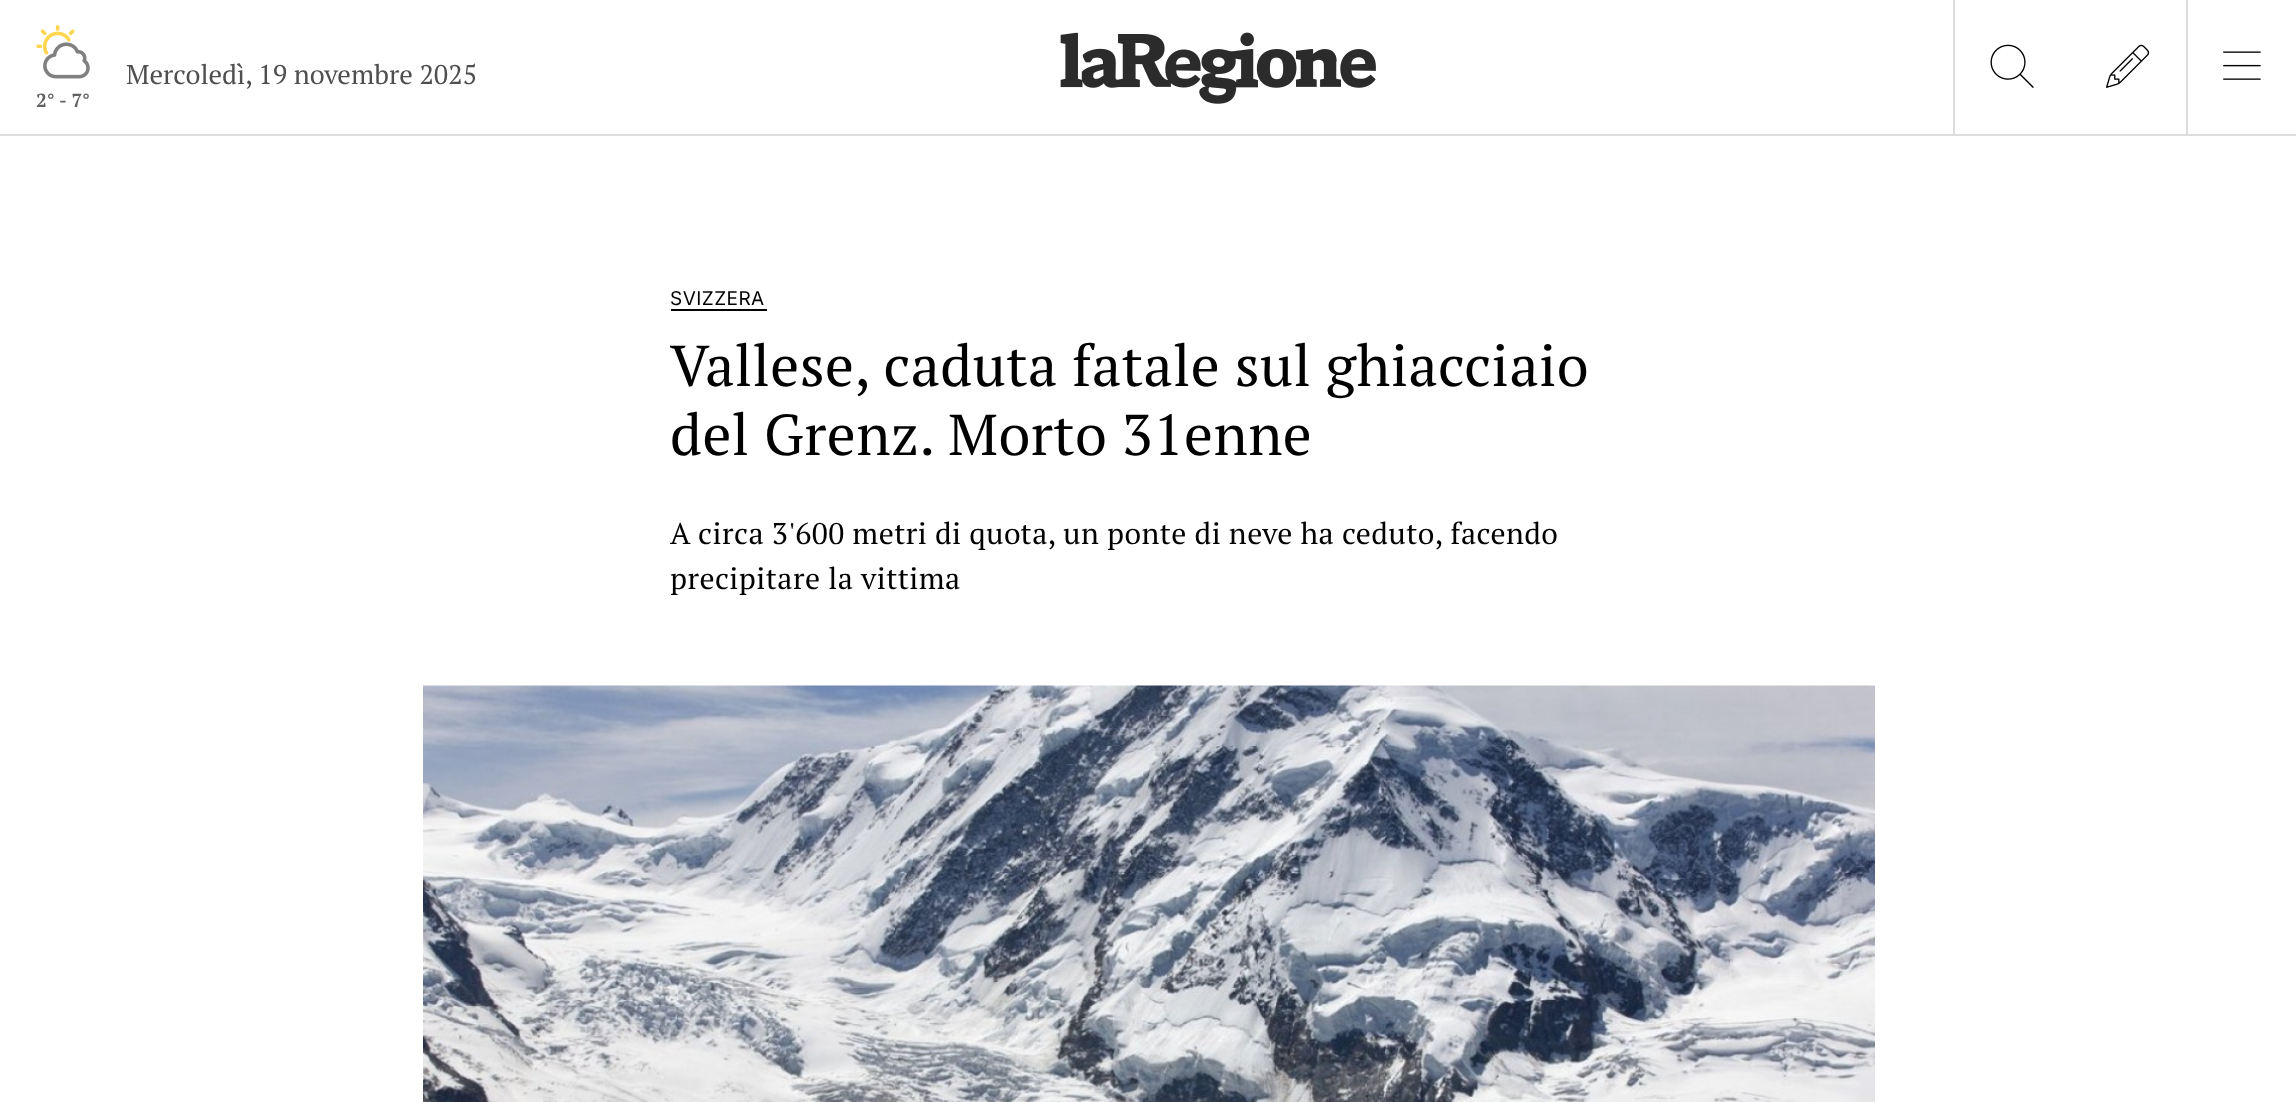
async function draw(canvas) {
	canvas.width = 2296;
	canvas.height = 1102;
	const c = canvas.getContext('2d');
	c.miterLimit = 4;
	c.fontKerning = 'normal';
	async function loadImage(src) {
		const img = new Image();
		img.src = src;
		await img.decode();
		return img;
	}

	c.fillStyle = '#fff';
	c.fillRect(0, 0, 2296, 1102);
	c.fillStyle = '#ddd';
	c.fillRect(0, 134, 2296, 2);
	c.font = '27px PT Serif';
	c.fillStyle = '#4f4f4f';
	c.fillText('Mercoledì, 19 novembre 2025', 126, 84);
	c.drawImage(await loadImage('img1.png'), 36, 25, 54, 54);
	c.font = 'bold 19px PT Serif';
	c.fillStyle = '#616161';
	c.fillText('2° - 7°', 36, 107);
	c.drawImage(await loadImage('img2.png'), 1060, 32, 316, 72);
	c.fillStyle = '#ddd';
	c.fillRect(1953, 0, 2, 135);
	c.drawImage(await loadImage('img3.png'), 1990, 44, 44, 44);
	c.drawImage(await loadImage('img4.png'), 2106, 44, 44, 44);
	c.fillRect(2186, 0, 2, 135);
	c.drawImage(await loadImage('img5.png'), 2223, 51, 38, 29);
	c.letterSpacing = '0.45px';
	c.font = '19px Inter';
	c.fillStyle = '#000';
	c.fillText('SVIZZERA', 670, 305);
	c.fillRect(671, 309, 96, 2);
	c.font = '57.6px PT Serif';
	c.fillText('Vallese, caduta fatale sul ghiacciaio', 670, 386);
	c.fillText('del Grenz. Morto 31enne', 670, 455);
	c.font = '30px PT Serif';
	c.fillText('A circa 3\'600 metri di quota, un ponte di neve ha ceduto, facendo', 670, 544);
	c.fillText('precipitare la vittima', 670, 589);
	c.drawImage(await loadImage('img6.png'), 423, 685, 1452, 417);
}

draw(document.querySelector('canvas'));
